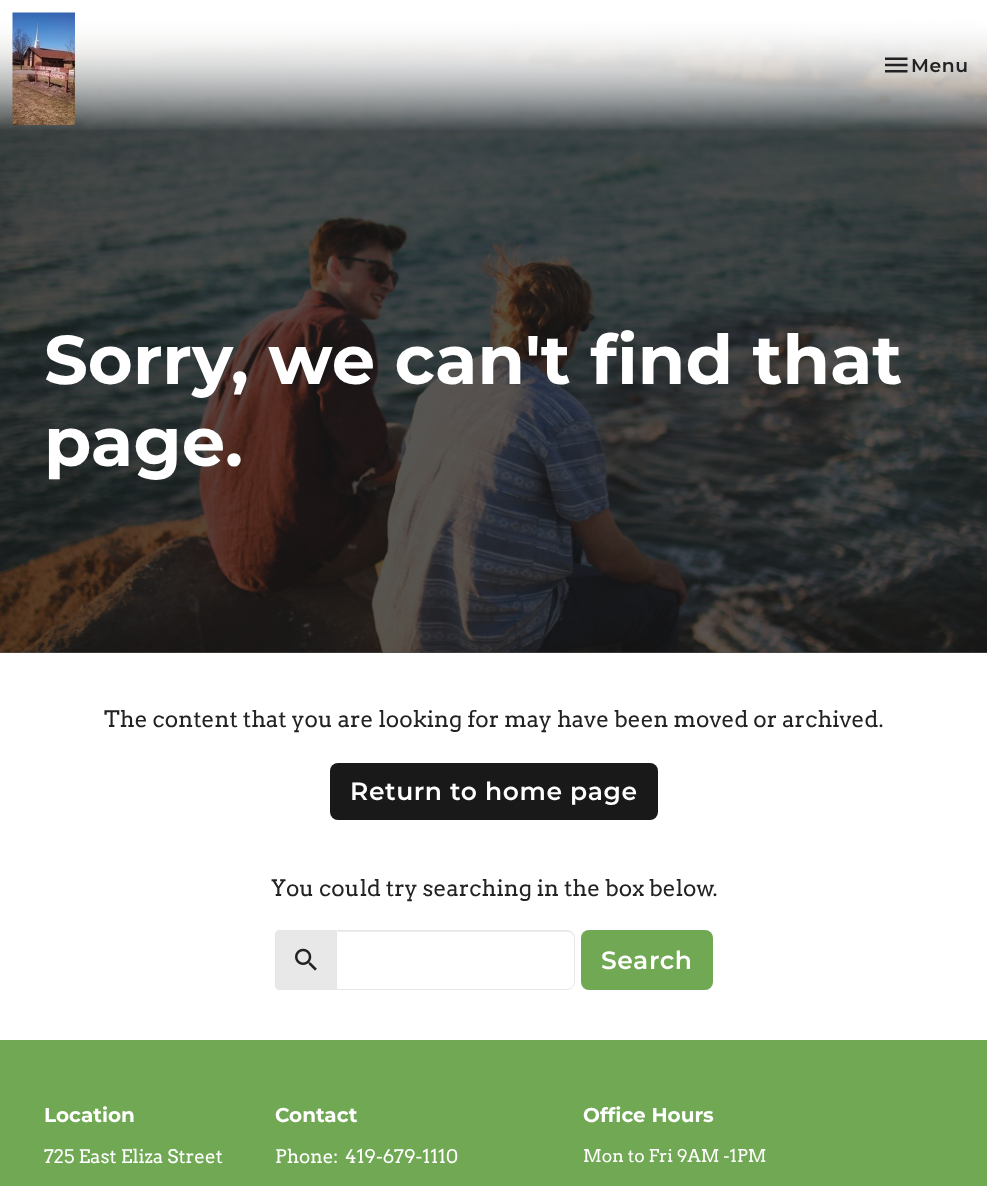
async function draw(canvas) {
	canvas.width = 987;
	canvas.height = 1186;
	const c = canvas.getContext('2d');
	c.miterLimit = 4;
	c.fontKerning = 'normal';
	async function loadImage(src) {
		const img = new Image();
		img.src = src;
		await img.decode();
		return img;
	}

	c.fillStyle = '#fff';
	c.fillRect(0, 0, 987, 1186);
	c.fillStyle = '#575757';
	c.fillRect(0, 652, 987, 1);
	c.drawImage(await loadImage('img3.png'), 0, 0, 987, 653);
	c.drawImage(await loadImage('img1.png'), 12, 12, 63, 113);
	c.drawImage(await loadImage('img2.png'), 885, 57, 23, 16);
	c.letterSpacing = '0.6px';
	c.font = '600 18.75px Montserrat';
	c.fillStyle = '#222';
	c.fillText('Menu', 911, 72);
	c.letterSpacing = '0px';
	c.font = 'bold 68.75px Montserrat';
	c.fillStyle = '#fff';
	c.fillText('Sorry, we can\'t find that', 44, 384);
	c.fillText('page.', 44, 466);
	c.font = '22.5px Arvo';
	c.fillStyle = '#222';
	c.fillText('The content that you are looking for may have been moved or archived.', 104, 727);
	c.fillStyle = '#191919';
	c.beginPath();
	c.roundRect(330, 763, 328, 57, 8);
	c.fill();
	c.letterSpacing = '0.6px';
	c.font = '600 25px Montserrat';
	c.fillStyle = '#fff';
	c.fillText('Return to home page', 350, 800);
	c.letterSpacing = '0px';
	c.font = '22.5px Arvo';
	c.fillStyle = '#222';
	c.fillText('You could try searching in the box below.', 271, 896);
	c.fillStyle = '#e8e8e8';
	c.beginPath();
	c.roundRect(275, 930, 61, 60, [5, 0, 0, 5]);
	c.fill();
	c.fillStyle = '#e6e6e6';
	c.beginPath();
	c.moveTo(280, 930);
	c.lineTo(336, 930);
	c.lineTo(336, 990);
	c.lineTo(280, 990);
	c.bezierCurveTo(277, 990, 275, 988, 275, 985);
	c.lineTo(275, 935);
	c.bezierCurveTo(275, 932, 277, 930, 280, 930);
	c.closePath();
	c.moveTo(280, 931);
	c.lineTo(336, 931);
	c.lineTo(336, 989);
	c.lineTo(280, 989);
	c.bezierCurveTo(278, 989, 276, 987, 276, 985);
	c.lineTo(276, 935);
	c.bezierCurveTo(276, 933, 278, 931, 280, 931);
	c.closePath();
	c.fill('evenodd');
	c.drawImage(await loadImage('img4.png'), 295, 948, 22, 23);
	c.fillStyle = '#ececec';
	c.beginPath();
	c.moveTo(338, 932);
	c.lineTo(568, 932);
	c.bezierCurveTo(571, 932, 574, 935, 574, 939);
	c.lineTo(574, 937);
	c.bezierCurveTo(574, 934, 571, 931, 568, 931);
	c.lineTo(338, 931);
	c.closePath();
	c.fill();
	c.beginPath();
	c.roundRect(336.5, 930.5, 238, 59, [0, 7.5, 7.5, 0]);
	c.strokeStyle = '#e6e6e6';
	c.stroke();
	c.fillStyle = '#70a854';
	c.beginPath();
	c.roundRect(581, 930, 132, 60, 8);
	c.fill();
	c.letterSpacing = '0.6px';
	c.font = '600 25px Montserrat';
	c.fillStyle = '#fff';
	c.fillText('Search', 601, 969);
	c.fillStyle = '#70a854';
	c.fillRect(0, 1040, 987, 146);
	c.letterSpacing = '0px';
	c.font = 'bold 20px Montserrat';
	c.fillStyle = '#fff';
	c.fillText('Location', 44, 1122);
	c.font = '18.75px Arvo';
	c.fillText('725 East Eliza Street', 44, 1163);
	c.font = 'bold 20px Montserrat';
	c.fillText('Contact', 275, 1122);
	c.font = '18.75px Arvo';
	c.fillText('Phone:', 275, 1163);
	c.fillText('419-679-1110', 345, 1163);
	c.font = 'bold 20px Montserrat';
	c.fillText('Office Hours', 583, 1122);
	c.font = '17.5px Arvo';
	c.fillText('Mon to Fri 9AM -1PM', 583, 1162);
}

draw(document.querySelector('canvas'));
